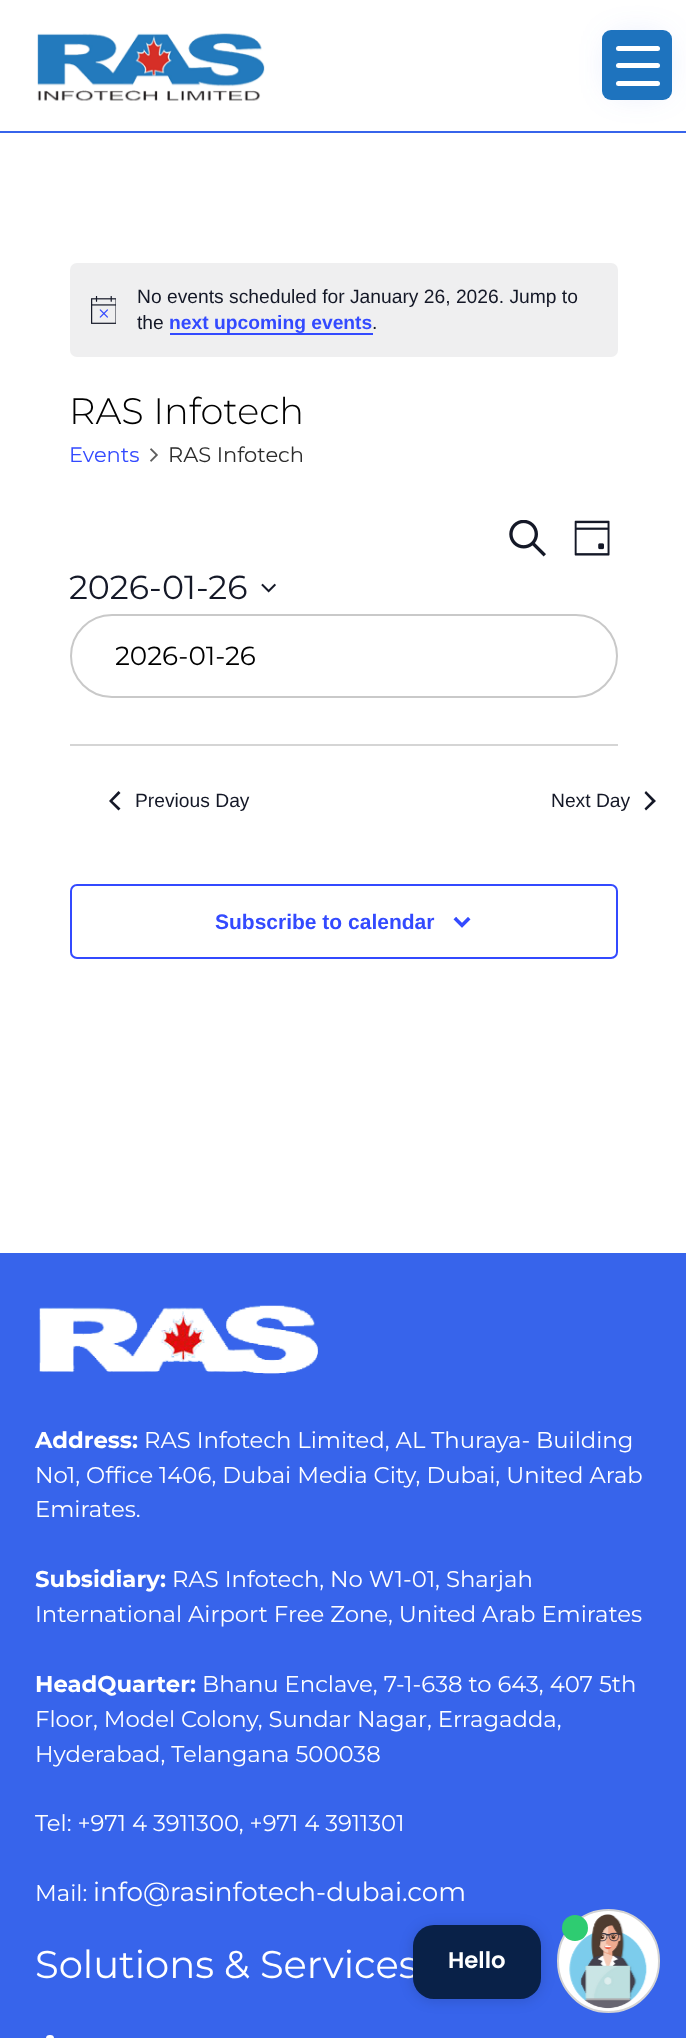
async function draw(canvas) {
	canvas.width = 686;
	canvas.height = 2038;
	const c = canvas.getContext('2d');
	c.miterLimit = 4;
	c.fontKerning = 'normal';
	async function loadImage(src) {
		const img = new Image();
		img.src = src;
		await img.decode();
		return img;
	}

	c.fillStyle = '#fff';
	c.fillRect(0, 0, 686, 2038);
	c.fillStyle = '#3764eb';
	c.fillRect(0, 131, 686, 2);
	c.filter = 'blur(22px)';
	c.beginPath();
	c.rect(627, 54, 21, 21);
	c.fill();
	c.filter = 'none';
	c.fillStyle = '#1e73be';
	c.beginPath();
	c.roundRect(602, 30, 70, 70, 9);
	c.fill();
	c.fillStyle = '#fff';
	c.beginPath();
	c.roundRect(616, 63, 44, 5, 2.5);
	c.fill();
	c.beginPath();
	c.roundRect(616, 46, 44, 5, 2.5);
	c.fill();
	c.beginPath();
	c.roundRect(616, 81, 44, 5, 2.5);
	c.fill();
	c.drawImage(await loadImage('img1.png'), 37, 33, 228, 68);
	c.fillStyle = '#efeff0';
	c.beginPath();
	c.roundRect(70, 263, 548, 94, 7);
	c.fill();
	c.drawImage(await loadImage('img2.png'), 91, 296, 25, 28);
	c.font = '19.25px Liberation Sans';
	c.fillStyle = '#141827';
	c.fillText('No events scheduled for January 26, 2026. Jump to', 137, 303);
	c.fillText('the', 137, 329);
	c.fillStyle = '#334aff';
	c.fillRect(170, 333, 203, 2);
	c.font = 'bold 19.25px Liberation Sans';
	c.fillText('next upcoming events', 169, 329);
	c.font = '19.25px Liberation Sans';
	c.fillStyle = '#141827';
	c.fillText('.', 372, 329);
	c.font = '300 36.75px Montserrat';
	c.fillStyle = '#000';
	c.fillText('RAS Infotech', 69, 424);
	c.font = '21px Montserrat';
	c.fillStyle = '#334aff';
	c.fillText('Events', 69, 462);
	c.drawImage(await loadImage('img3.png'), 150, 448, 8, 14);
	c.fillStyle = '#2c2c2c';
	c.fillText('RAS Infotech', 168, 462);
	c.drawImage(await loadImage('img4.png'), 509, 520, 37, 37);
	c.drawImage(await loadImage('img5.png'), 574, 520, 36, 36);
	c.font = '33.25px Montserrat';
	c.fillStyle = '#141827';
	c.fillText('2026-01-26', 69, 599);
	c.drawImage(await loadImage('img6.png'), 261, 583, 15, 10);
	c.beginPath();
	c.roundRect(71, 615, 546, 82, 41);
	c.strokeStyle = '#c9c9c9';
	c.lineWidth = 2;
	c.stroke();
	c.save();
	c.beginPath();
	c.rect(116, 642, 456, 28);
	c.clip();
	c.font = '26.25px Montserrat';
	c.fillStyle = '#000';
	c.fillText('2026-01-26', 115, 665);
	c.restore();
	c.fillStyle = '#d5d5d5';
	c.fillRect(70, 744, 548, 2);
	c.fillStyle = '#141827';
	c.beginPath();
	c.moveTo(120.5, 808.5);
	c.lineTo(118.5, 810.5);
	c.lineTo(109, 801);
	c.lineTo(118.5, 791);
	c.lineTo(120.5, 793);
	c.lineTo(112.5, 801);
	c.closePath();
	c.fill();
	c.font = '19.25px Liberation Sans';
	c.fillText('Previous Day', 135, 807);
	c.fillText('Next Day', 551, 807);
	c.beginPath();
	c.moveTo(644.5, 793);
	c.lineTo(646, 791);
	c.lineTo(656, 801);
	c.lineTo(646, 810.5);
	c.lineTo(644.5, 808.5);
	c.lineTo(652, 801);
	c.closePath();
	c.fill();
	c.beginPath();
	c.roundRect(71, 885, 546, 73, 6);
	c.strokeStyle = '#334aff';
	c.stroke();
	c.font = 'bold 21px Liberation Sans';
	c.fillStyle = '#334aff';
	c.fillText('Subscribe to calendar', 215, 929);
	c.drawImage(await loadImage('img7.png'), 453, 917, 18, 11);
	c.fillStyle = '#3764eb';
	c.fillRect(0, 1253, 686, 785);
	c.drawImage(await loadImage('img8.png'), 39, 1305, 279, 69);
	c.font = 'bold 22.75px Montserrat';
	c.fillStyle = '#fff';
	c.fillText('Address:', 35, 1448);
	c.font = '22.75px Montserrat';
	for (const [text, x, y] of [
		['RAS Infotech Limited, AL Thuraya- Building', 144, 1448],
		['No1, Office 1406, Dubai Media City, Dubai, United Arab', 35, 1483],
		['Emirates.', 35, 1517],
	]) {
		c.fillText(text, x, y);
	}
	c.font = 'bold 22.75px Montserrat';
	c.fillText('Subsidiary:', 35, 1587);
	c.font = '22.75px Montserrat';
	c.fillText('RAS Infotech, No W1-01, Sharjah', 172, 1587);
	c.fillText('International Airport Free Zone, United Arab Emirates', 35, 1622);
	c.font = 'bold 22.75px Montserrat';
	c.fillText('HeadQuarter:', 35, 1692);
	c.font = '22.75px Montserrat';
	for (const [text, x, y] of [
		['Bhanu Enclave, 7-1-638 to 643, 407 5th', 202, 1692],
		['Floor, Model Colony, Sundar Nagar, Erragadda,', 35, 1727],
		['Hyderabad, Telangana 500038', 35, 1762],
		['Tel: +971 4 3911300, +971 4 3911301', 35, 1831],
		['Mail:', 35, 1901],
	]) {
		c.fillText(text, x, y);
	}
	c.font = '26.25px Montserrat';
	c.fillText('info@rasinfotech-dubai.com', 93, 1901);
	c.font = '38.5px Montserrat';
	c.fillText('Solutions & Services', 35, 1978);
	c.beginPath();
	c.roundRect(46, 2035, 8, 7, 4);
	c.fill();
	c.fillStyle = '#00000026';
	c.filter = 'blur(7px)';
	c.beginPath();
	c.roundRect(413, 1927, 128, 73, 21);
	c.fill();
	c.filter = 'none';
	c.fillStyle = '#092148';
	c.beginPath();
	c.roundRect(413, 1925, 128, 74, 21);
	c.fill();
	c.font = '600 22.75px Poppins';
	c.fillStyle = '#fff';
	c.fillText('Hello', 448, 1968);
	c.beginPath();
	c.roundRect(558, 1910, 101, 102, 50.5);
	c.fill();
	c.strokeStyle = '#d3d3d3';
	c.stroke();
	c.drawImage(await loadImage('img9.png'), 569, 1914, 78, 95);
	c.fillStyle = '#2ecc71';
	c.beginPath();
	c.arc(575, 1928, 13, 0, 2 * Math.PI);
	c.fill();
}

draw(document.querySelector('canvas'));
